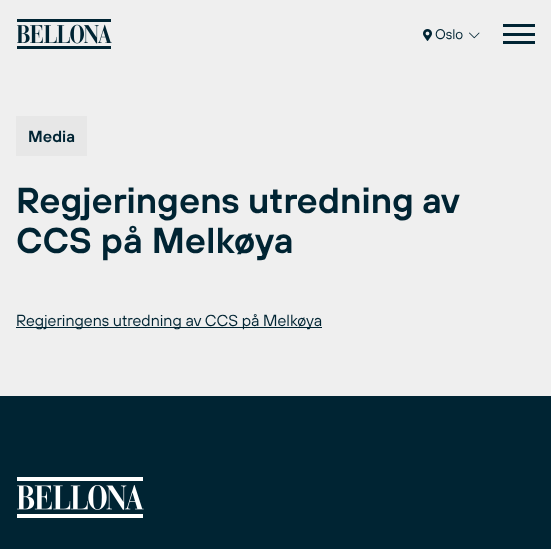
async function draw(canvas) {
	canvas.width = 551;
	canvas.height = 549;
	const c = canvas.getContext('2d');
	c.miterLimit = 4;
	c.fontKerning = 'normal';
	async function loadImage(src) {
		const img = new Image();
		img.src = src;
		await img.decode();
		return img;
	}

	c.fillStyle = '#efefef';
	c.fillRect(0, 0, 551, 549);
	c.drawImage(await loadImage('img1.png'), 17, 19, 95, 30);
	c.drawImage(await loadImage('img2.png'), 423, 29, 9, 12);
	c.font = '14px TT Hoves';
	c.fillStyle = '#002433';
	c.fillText('Oslo', 435, 39);
	c.drawImage(await loadImage('img3.png'), 469, 32, 11, 7);
	for (const [x, y, w, h, color] of [
		[503, 24, 32, 3, '#002433'],
		[503, 33, 32, 3, '#002433'],
		[503, 41, 32, 3, '#002433'],
		[16, 116, 71, 40, '#e7e7e7'],
	]) {
		c.fillStyle = color;
		c.fillRect(x, y, w, h);
	}
	c.font = '600 16px TT Hoves';
	c.fillStyle = '#002433';
	c.fillText('Media', 28, 142);
	c.wordSpacing = '-1px';
	c.font = '600 36px TT Hoves';
	c.fillText('Regjeringens utredning av', 16, 213);
	c.wordSpacing = '0px';
	c.fillText('CCS på Melkøya', 16, 253);
	c.fillRect(16, 327, 306, 1);
	c.font = '16px TT Hoves';
	c.fillText('Regjeringens utredning av CCS på Melkøya', 16, 326);
	c.fillRect(0, 396, 551, 153);
	c.drawImage(await loadImage('img4.png'), 17, 477, 127, 41);
}

draw(document.querySelector('canvas'));
